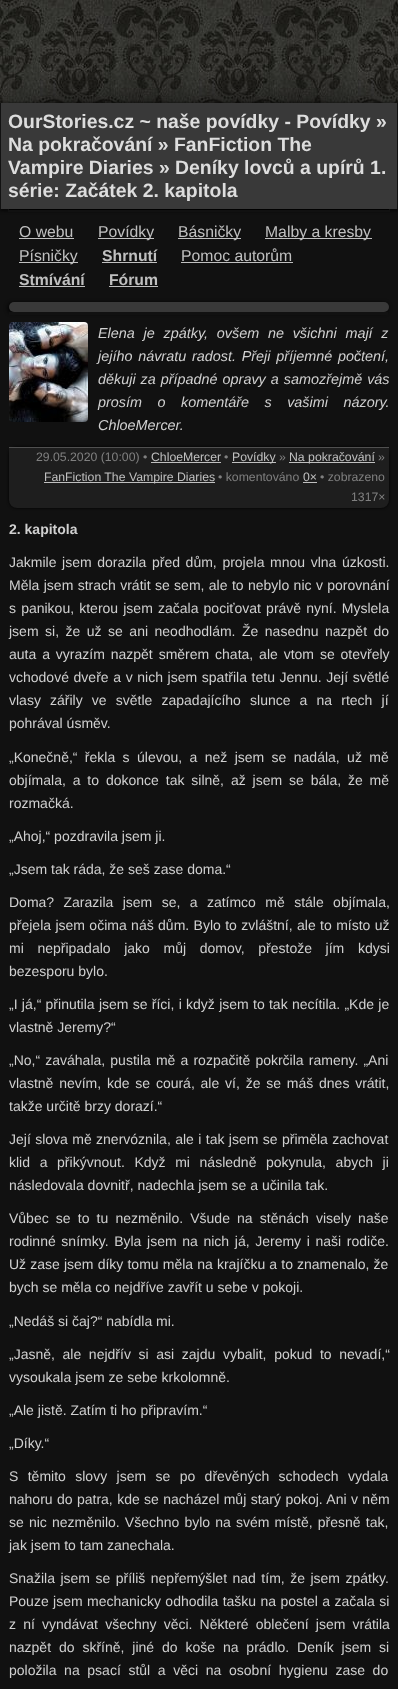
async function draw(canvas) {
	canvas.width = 398;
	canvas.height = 1689;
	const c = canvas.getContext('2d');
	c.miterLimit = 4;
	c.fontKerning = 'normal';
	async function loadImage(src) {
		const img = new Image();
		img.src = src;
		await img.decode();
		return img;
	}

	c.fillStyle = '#fff';
	c.fillRect(0, 0, 398, 1689);
	c.drawImage(await loadImage('img1.png'), 0, 0, 398, 103);
	c.fillStyle = '#000';
	c.filter = 'blur(25px)';
	c.beginPath();
	c.roundRect(0, 113, 398, 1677, 26);
	c.fill();
	c.filter = 'none';
	c.fillStyle = '#111';
	c.fillRect(0, 209, 398, 1480);
	c.fillStyle = '#000';
	c.filter = 'blur(2px)';
	c.beginPath();
	c.rect(0, 104, 398, 106);
	c.fill();
	c.filter = 'none';
	for (const [x, y, w, h, color] of [
		[1, 103, 396, 106, '#393939'],
		[397, 103, 1, 106, '#111'],
		[0, 103, 1, 106, '#111'],
	]) {
		c.fillStyle = color;
		c.fillRect(x, y, w, h);
	}
	c.font = 'bold 19.4px Liberation Sans';
	c.fillStyle = '#ddd';
	for (const [text, x, y] of [
		['OurStories.cz ~ naše povídky - Povídky »', 8, 128],
		['Na pokračování » FanFiction The', 8, 151],
		['Vampire Diaries » Deníky lovců a upírů 1.', 8, 174],
		['série: Začátek 2. kapitola', 8, 197],
	]) {
		c.fillText(text, x, y);
	}
	for (const [x, y, w, h, color] of [
		[8, 209, 382, 1, '#000'],
		[389, 209, 1, 3, '#111'],
		[8, 209, 1, 3, '#111'],
		[9, 210, 380, 2, '#111'],
	]) {
		c.fillStyle = color;
		c.fillRect(x, y, w, h);
	}
	c.font = '15.75px Liberation Sans';
	c.fillStyle = '#c0c0c0';
	c.fillText('O webu', 19, 237);
	c.fillRect(19, 238, 55, 1);
	c.fillRect(98, 238, 56, 1);
	c.fillText('Povídky', 98, 237);
	c.fillRect(178, 238, 63, 1);
	c.fillText('Básničky', 178, 237);
	c.fillRect(265, 238, 107, 1);
	c.fillText('Malby a kresby', 265, 237);
	c.fillRect(19, 262, 59, 1);
	c.fillText('Písničky', 19, 261);
	c.font = 'bold 15.75px Liberation Sans';
	c.fillText('Shrnutí', 102, 261);
	c.fillRect(102, 262, 55, 1);
	c.font = '15.75px Liberation Sans';
	c.fillText('Pomoc autorům', 181, 261);
	c.fillRect(181, 262, 112, 1);
	c.font = 'bold 15.75px Liberation Sans';
	c.fillText('Stmívání', 19, 285);
	c.fillRect(19, 286, 66, 1);
	c.fillText('Fórum', 109, 285);
	c.fillRect(109, 286, 49, 1);
	c.fillStyle = '#000';
	c.filter = 'blur(2px)';
	c.beginPath();
	c.roundRect(8, 303, 380, 10, 5);
	c.fill();
	c.filter = 'none';
	c.fillStyle = '#393939';
	c.beginPath();
	c.roundRect(9, 302, 380, 10, 5);
	c.fill();
	c.fillStyle = '#111';
	c.fillRect(9, 312, 379, 3);
	c.drawImage(await loadImage('img2.png'), 9, 322, 79, 100);
	c.wordSpacing = '4.75px';
	c.font = 'italic 14.4px Liberation Sans';
	c.fillStyle = '#d0d0d0';
	c.fillText('Elena je zpátky, ovšem ne všichni mají z', 98, 338);
	c.wordSpacing = '1.75px';
	c.fillText('jejího návratu radost. Přeji příjemné počtení,', 98, 361);
	c.wordSpacing = '1px';
	c.fillText('děkuji za případné opravy a samozřejmě vás', 98, 384);
	c.wordSpacing = '11.5px';
	c.fillText('prosím o komentáře s vašimi názory.', 98, 407);
	c.wordSpacing = '0px';
	c.fillText('ChloeMercer.', 98, 430);
	c.fillStyle = '#000';
	c.filter = 'blur(1.5px)';
	c.beginPath();
	c.roundRect(9, 447, 380, 61, 8);
	c.fill();
	c.filter = 'none';
	c.fillStyle = '#1e1e1e';
	c.beginPath();
	c.roundRect(9, 447, 380, 61, [0, 0, 8, 8]);
	c.fill();
	c.fillStyle = '#505050';
	c.fillRect(9, 447, 380, 1);
	c.font = '12.25px Liberation Sans';
	c.fillStyle = '#808080';
	c.fillText('29.05.2020 (10:00) •', 36, 461);
	c.fillStyle = '#c0c0c0';
	c.fillText('ChloeMercer', 151, 461);
	c.fillRect(151, 462, 70, 1);
	c.fillStyle = '#808080';
	c.fillText('•', 224, 461);
	c.fillStyle = '#c0c0c0';
	c.fillRect(232, 462, 44, 1);
	c.fillText('Povídky', 232, 461);
	c.fillStyle = '#808080';
	c.fillText('»', 279, 461);
	c.fillStyle = '#c0c0c0';
	c.fillRect(289, 462, 86, 1);
	c.fillText('Na pokračování', 289, 461);
	c.fillStyle = '#808080';
	c.fillText('»', 378, 461);
	c.fillStyle = '#c0c0c0';
	c.fillRect(44, 482, 171, 1);
	c.fillText('FanFiction The Vampire Diaries', 44, 481);
	c.fillStyle = '#808080';
	c.fillText('• komentováno', 218, 481);
	c.fillStyle = '#c0c0c0';
	c.fillText('0×', 303, 481);
	c.fillRect(303, 482, 14, 1);
	c.fillStyle = '#808080';
	c.fillText('• zobrazeno', 320, 481);
	c.fillText('1317×', 351, 501);
	c.font = 'bold 14px Liberation Sans';
	c.fillStyle = '#d0d0d0';
	c.fillText('2. kapitola', 9, 534);
	c.wordSpacing = '1.75px';
	c.font = '14px Liberation Sans';
	c.fillText('Jakmile jsem dorazila před dům, projela mnou vlna úzkosti.', 9, 567);
	c.wordSpacing = '0.5px';
	c.fillText('Měla jsem strach vrátit se sem, ale to nebylo nic v porovnání', 9, 590);
	c.wordSpacing = '1.25px';
	c.fillText('s panikou, kterou jsem začala pociťovat právě nyní. Myslela', 9, 613);
	c.wordSpacing = '2.6px';
	c.fillText('jsem si, že už se ani neodhodlám. Že nasednu nazpět do', 9, 636);
	c.wordSpacing = '2px';
	c.fillText('auta a vyrazím nazpět směrem chata, ale vtom se otevřely', 9, 659);
	c.wordSpacing = '0.75px';
	c.fillText('vchodové dveře a v nich jsem spatřila tetu Jennu. Její světlé', 9, 682);
	c.wordSpacing = '5.25px';
	c.fillText('vlasy zářily ve světle zapadajícího slunce a na rtech jí', 9, 705);
	c.wordSpacing = '0px';
	c.fillText('pohrával úsměv.', 9, 728);
	c.wordSpacing = '3.5px';
	c.fillText('„Konečně,“ řekla s úlevou, a než jsem se nadála, už mě', 9, 762);
	c.wordSpacing = '3px';
	c.fillText('objímala, a to dokonce tak silně, až jsem se bála, že mě', 9, 785);
	c.wordSpacing = '0px';
	for (const [text, x, y] of [
		['rozmačká.', 9, 808],
		['„Ahoj,“ pozdravila jsem ji.', 9, 841],
		['„Jsem tak ráda, že seš zase doma.“', 9, 874],
	]) {
		c.fillText(text, x, y);
	}
	c.wordSpacing = '5.5px';
	c.fillText('Doma? Zarazila jsem se, a zatímco mě stále objímala,', 9, 907);
	c.wordSpacing = '0.5px';
	c.fillText('přejela jsem očima náš dům. Bylo to zvláštní, ale to místo už', 9, 930);
	c.wordSpacing = '9.75px';
	c.fillText('mi nepřipadalo jako můj domov, přestože jím kdysi', 9, 953);
	c.wordSpacing = '0px';
	c.fillText('bezesporu bylo.', 9, 976);
	c.wordSpacing = '0.4px';
	c.fillText('„I já,“ přinutila jsem se říci, i když jsem to tak necítila. „Kde je', 9, 1009);
	c.wordSpacing = '0px';
	c.fillText('vlastně Jeremy?“', 9, 1032);
	c.wordSpacing = '1.25px';
	c.fillText('„No,“ zaváhala, pustila mě a rozpačitě pokrčila rameny. „Ani', 9, 1065);
	c.wordSpacing = '1.9px';
	c.fillText('vlastně nevím, kde se courá, ale ví, že se máš dnes vrátit,', 9, 1088);
	c.wordSpacing = '0px';
	c.fillText('takže určitě brzy dorazí.“', 9, 1111);
	c.wordSpacing = '0.5px';
	c.fillText('Její slova mě znervóznila, ale i tak jsem se přiměla zachovat', 9, 1144);
	c.wordSpacing = '5.75px';
	c.fillText('klid a přikývnout. Když mi následně pokynula, abych ji', 9, 1167);
	c.wordSpacing = '0px';
	c.fillText('následovala dovnitř, nadechla jsem se a učinila tak.', 9, 1190);
	c.wordSpacing = '3.25px';
	c.fillText('Vůbec se to tu nezměnilo. Všude na stěnách visely naše', 9, 1223);
	c.wordSpacing = '1.75px';
	c.fillText('rodinné snímky. Byla jsem na nich já, Jeremy i naši rodiče.', 9, 1246);
	c.wordSpacing = '0.25px';
	c.fillText('Už zase jsem díky tomu měla na krajíčku a to znamenalo, že', 9, 1269);
	c.wordSpacing = '0px';
	c.fillText('bych se měla co nejdříve zavřít u sebe v pokoji.', 9, 1292);
	c.fillText('„Nedáš si čaj?“ nabídla mi.', 9, 1326);
	c.wordSpacing = '3.75px';
	c.fillText('„Jasně, ale nejdřív si asi zajdu vybalit, pokud to nevadí,“', 9, 1359);
	c.wordSpacing = '0px';
	for (const [text, x, y] of [
		['vysoukala jsem ze sebe krkolomně.', 9, 1382],
		['„Ale jistě. Zatím ti ho připravím.“', 9, 1415],
		['„Díky.“', 9, 1448],
	]) {
		c.fillText(text, x, y);
	}
	c.wordSpacing = '5.5px';
	c.fillText('S těmito slovy jsem se po dřevěných schodech vydala', 9, 1481);
	c.wordSpacing = '0.5px';
	c.fillText('nahoru do patra, kde se nacházel můj starý pokoj. Ani v něm', 9, 1504);
	c.wordSpacing = '1.25px';
	c.fillText('se nic nezměnilo. Všechno bylo na svém místě, přesně tak,', 9, 1527);
	c.wordSpacing = '0px';
	c.fillText('jak jsem to tam zanechala.', 9, 1550);
	c.wordSpacing = '1.6px';
	c.fillText('Snažila jsem se příliš nepřemýšlet nad tím, že jsem zpátky.', 9, 1583);
	c.wordSpacing = '0.5px';
	c.fillText('Pouze jsem mechanicky odhodila tašku na postel a začala si', 9, 1606);
	c.wordSpacing = '3.25px';
	c.fillText('z ní vyndávat všechny věci. Některé oblečení jsem vrátila', 9, 1629);
	c.wordSpacing = '4px';
	c.fillText('nazpět do skříně, jiné do koše na prádlo. Deník jsem si', 9, 1652);
	c.wordSpacing = '3.75px';
	c.fillText('položila na psací stůl a věci na osobní hygienu zase do', 9, 1675);
}

draw(document.querySelector('canvas'));
